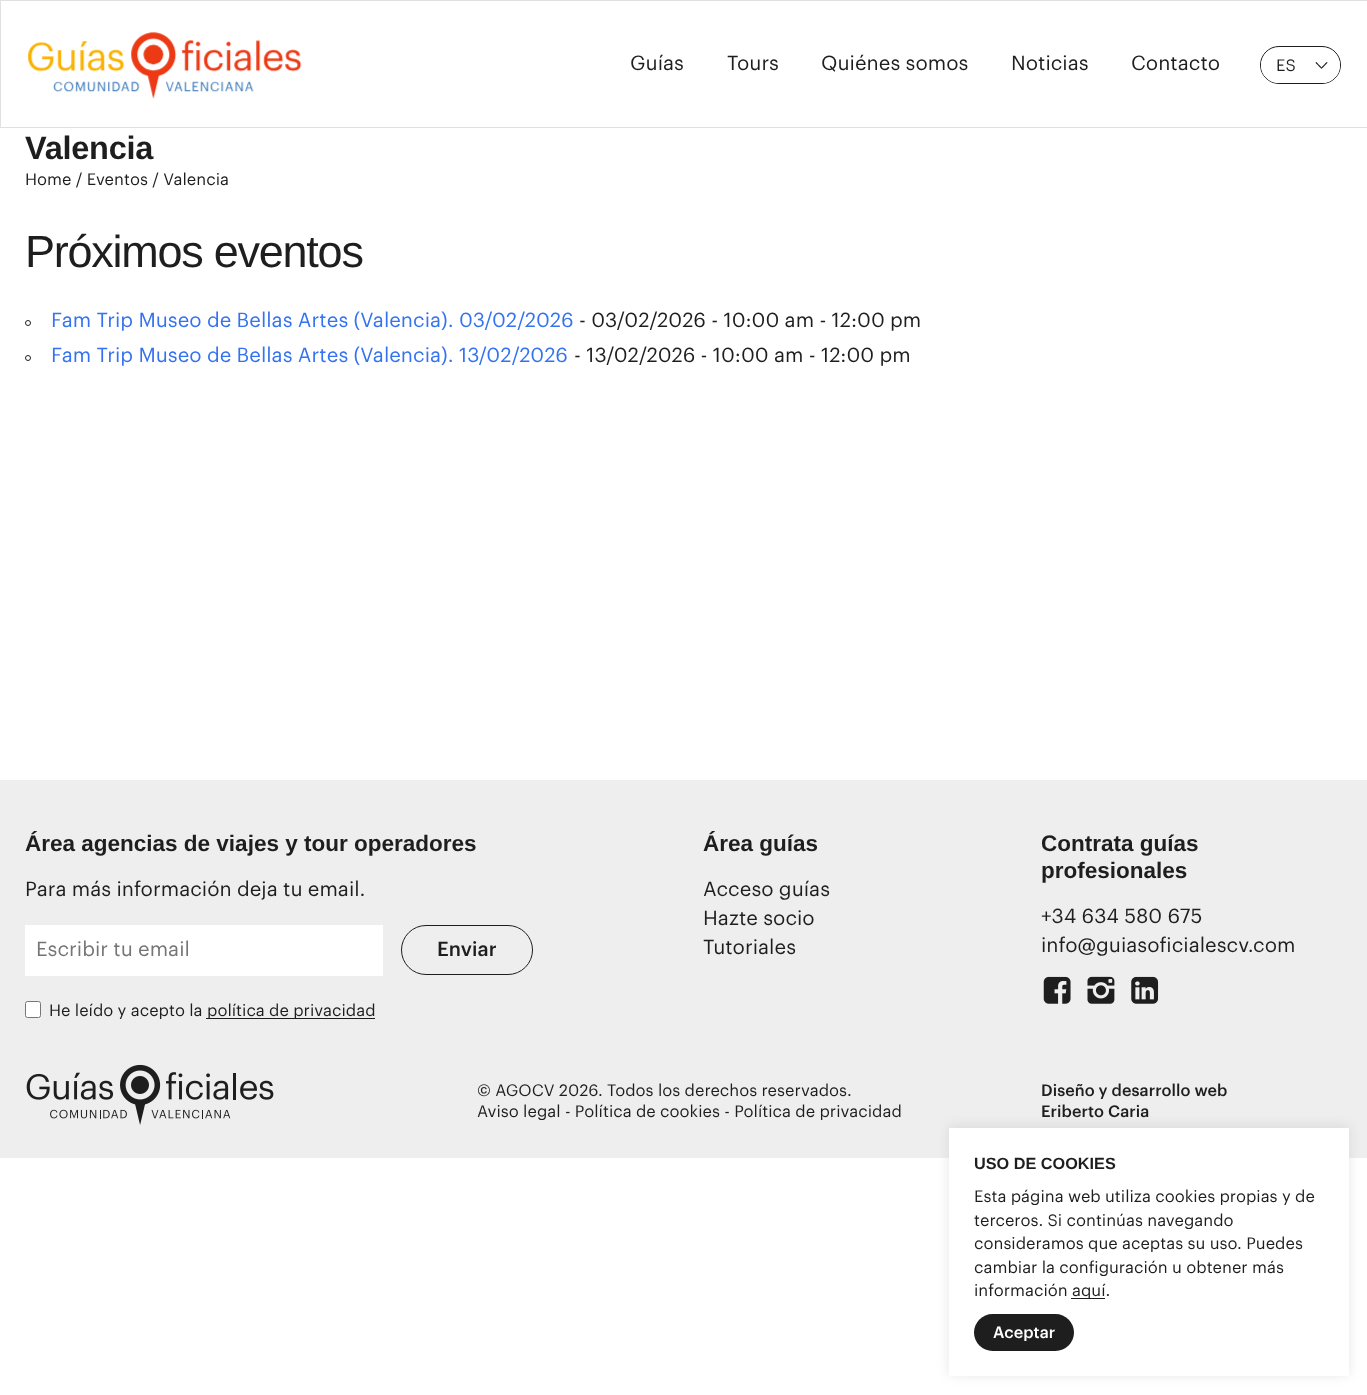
async function draw(canvas) {
	canvas.width = 1367;
	canvas.height = 1395;
	const c = canvas.getContext('2d');
	c.miterLimit = 4;
	c.fontKerning = 'normal';
	async function loadImage(src) {
		const img = new Image();
		img.src = src;
		await img.decode();
		return img;
	}

	c.fillStyle = '#fff';
	c.fillRect(0, 0, 1367, 1395);
	c.strokeStyle = '#e0e0e0';
	c.strokeRect(0.5, 0.5, 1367, 127);
	c.drawImage(await loadImage('img1.png'), 27, 32, 275, 67);
	c.font = '20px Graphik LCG';
	c.fillStyle = '#1e1e1e';
	for (const [text, x, y] of [
		['Guías', 630, 70],
		['Tours', 727, 70],
		['Quiénes somos', 821, 70],
		['Noticias', 1011, 70],
		['Contacto', 1131, 70],
	]) {
		c.fillText(text, x, y);
	}
	c.beginPath();
	c.roundRect(1260.5, 46.5, 80, 37, 18.5);
	c.strokeStyle = '#1e1e1e';
	c.stroke();
	c.fillStyle = '#fff';
	c.beginPath();
	c.roundRect(1261, 48, 79, 35, 17.5);
	c.fill();
	c.font = '16.25px Graphik LCG';
	c.fillStyle = '#1e1e1e';
	c.fillText('ES', 1276, 71);
	c.drawImage(await loadImage('img2.png'), 1315, 62, 13, 7);
	c.letterSpacing = '-0.25px';
	c.font = 'bold 32.5px Liberation Sans';
	c.fillText('Valencia', 25, 159);
	c.letterSpacing = '0px';
	c.font = '16.25px Graphik LCG';
	c.fillText('Home / Eventos / Valencia', 25, 185);
	c.letterSpacing = '-1.25px';
	c.font = '45px Liberation Sans';
	c.fillText('Próximos eventos', 25, 267);
	c.beginPath();
	c.arc(28, 323, 2.5, 0, 2 * Math.PI);
	c.strokeStyle = '#212121';
	c.stroke();
	c.letterSpacing = '0px';
	c.font = '20px Graphik LCG';
	c.fillStyle = '#3372f0';
	c.fillText('Fam Trip Museo de Bellas Artes (Valencia). 03/02/2026', 51, 327);
	c.fillStyle = '#1e1e1e';
	c.fillText('- 03/02/2026 - 10:00 am - 12:00 pm', 579, 327);
	c.beginPath();
	c.arc(28, 358, 2.5, 0, 2 * Math.PI);
	c.stroke();
	c.fillStyle = '#3372f0';
	c.fillText('Fam Trip Museo de Bellas Artes (Valencia). 13/02/2026', 51, 362);
	c.fillStyle = '#1e1e1e';
	c.fillText('- 13/02/2026 - 10:00 am - 12:00 pm', 574, 362);
	c.fillStyle = '#eee';
	c.fillRect(0, 780, 1367, 378);
	c.font = 'bold 22.5px Liberation Sans';
	c.fillStyle = '#1e1e1e';
	c.fillText('Área agencias de viajes y tour operadores', 25, 851);
	c.font = '20px Graphik LCG';
	c.fillText('Para más información deja tu email.', 25, 896);
	c.fillStyle = '#fff';
	c.fillRect(25, 925, 358, 51);
	c.fillStyle = '#757575';
	c.fillText('Escribir tu email', 36, 956);
	c.beginPath();
	c.roundRect(401.5, 925.5, 131, 49, 24.5);
	c.strokeStyle = '#1e1e1e';
	c.stroke();
	c.font = '500 20px Graphik LCG';
	c.fillStyle = '#1e1e1e';
	c.fillText('Enviar', 437, 956);
	c.fillStyle = '#fff';
	c.beginPath();
	c.roundRect(25.5, 1001.5, 15, 16, 2);
	c.fill();
	c.strokeStyle = '#767676';
	c.stroke();
	c.font = '16.25px Graphik LCG';
	c.fillStyle = '#1e1e1e';
	c.fillText('He leído y acepto la', 49, 1016);
	c.fillStyle = '#1d1d1d';
	c.fillRect(206, 1018, 169, 1);
	c.fillStyle = '#1e1e1e';
	c.fillText('política de privacidad', 207, 1016);
	c.font = 'bold 22.5px Liberation Sans';
	c.fillText('Área guías', 703, 851);
	c.font = '20px Graphik LCG';
	for (const [text, x, y] of [
		['Acceso guías', 703, 896],
		['Hazte socio', 703, 925],
		['Tutoriales', 703, 954],
	]) {
		c.fillText(text, x, y);
	}
	c.font = 'bold 22.5px Liberation Sans';
	c.fillText('Contrata guías', 1041, 851);
	c.fillText('profesionales', 1041, 878);
	c.font = '20px Graphik LCG';
	c.fillText('+34 634 580 675', 1041, 923);
	c.fillText('info@guiasoficialescv.com', 1041, 952);
	c.drawImage(await loadImage('img3.png'), 1043, 976, 28, 28);
	c.drawImage(await loadImage('img4.png'), 1087, 976, 28, 28);
	c.drawImage(await loadImage('img5.png'), 1131, 976, 28, 28);
	c.drawImage(await loadImage('img6.png'), 26, 1064, 248, 61);
	c.font = '16.25px Graphik LCG';
	c.fillText('© AGOCV 2026. Todos los derechos reservados.', 477, 1096);
	c.fillText('Aviso legal - Política de cookies - Política de privacidad', 477, 1117);
	c.font = '500 16.25px Graphik LCG';
	c.fillText('Diseño y desarrollo web', 1041, 1096);
	c.fillText('Eriberto Caria', 1041, 1117);
	c.fillStyle = '#acabab4d';
	c.filter = 'blur(6px)';
	c.beginPath();
	c.rect(949, 1126, 400, 249);
	c.fill();
	c.filter = 'none';
	c.fillStyle = '#fff';
	c.fillRect(949, 1128, 400, 248);
	c.font = 'bold 16.25px Liberation Sans';
	c.fillStyle = '#1e1e1e';
	c.fillText('USO DE COOKIES', 974, 1169);
	c.font = '16.25px Graphik LCG';
	for (const [text, x, y] of [
		['Esta página web utiliza cookies propias y de', 974, 1202],
		['terceros. Si continúas navegando', 974, 1226],
		['consideramos que aceptas su uso. Puedes', 974, 1249],
		['cambiar la configuración u obtener más', 974, 1273],
		['información', 974, 1296],
	]) {
		c.fillText(text, x, y);
	}
	c.fillRect(1071, 1298, 34, 1);
	c.fillText('aquí.', 1072, 1296);
	c.beginPath();
	c.roundRect(974, 1314, 100, 37, 18.5);
	c.fill();
	c.font = '500 16.25px Graphik LCG';
	c.fillStyle = '#fff';
	c.fillText('Aceptar', 993, 1338);
}

draw(document.querySelector('canvas'));
